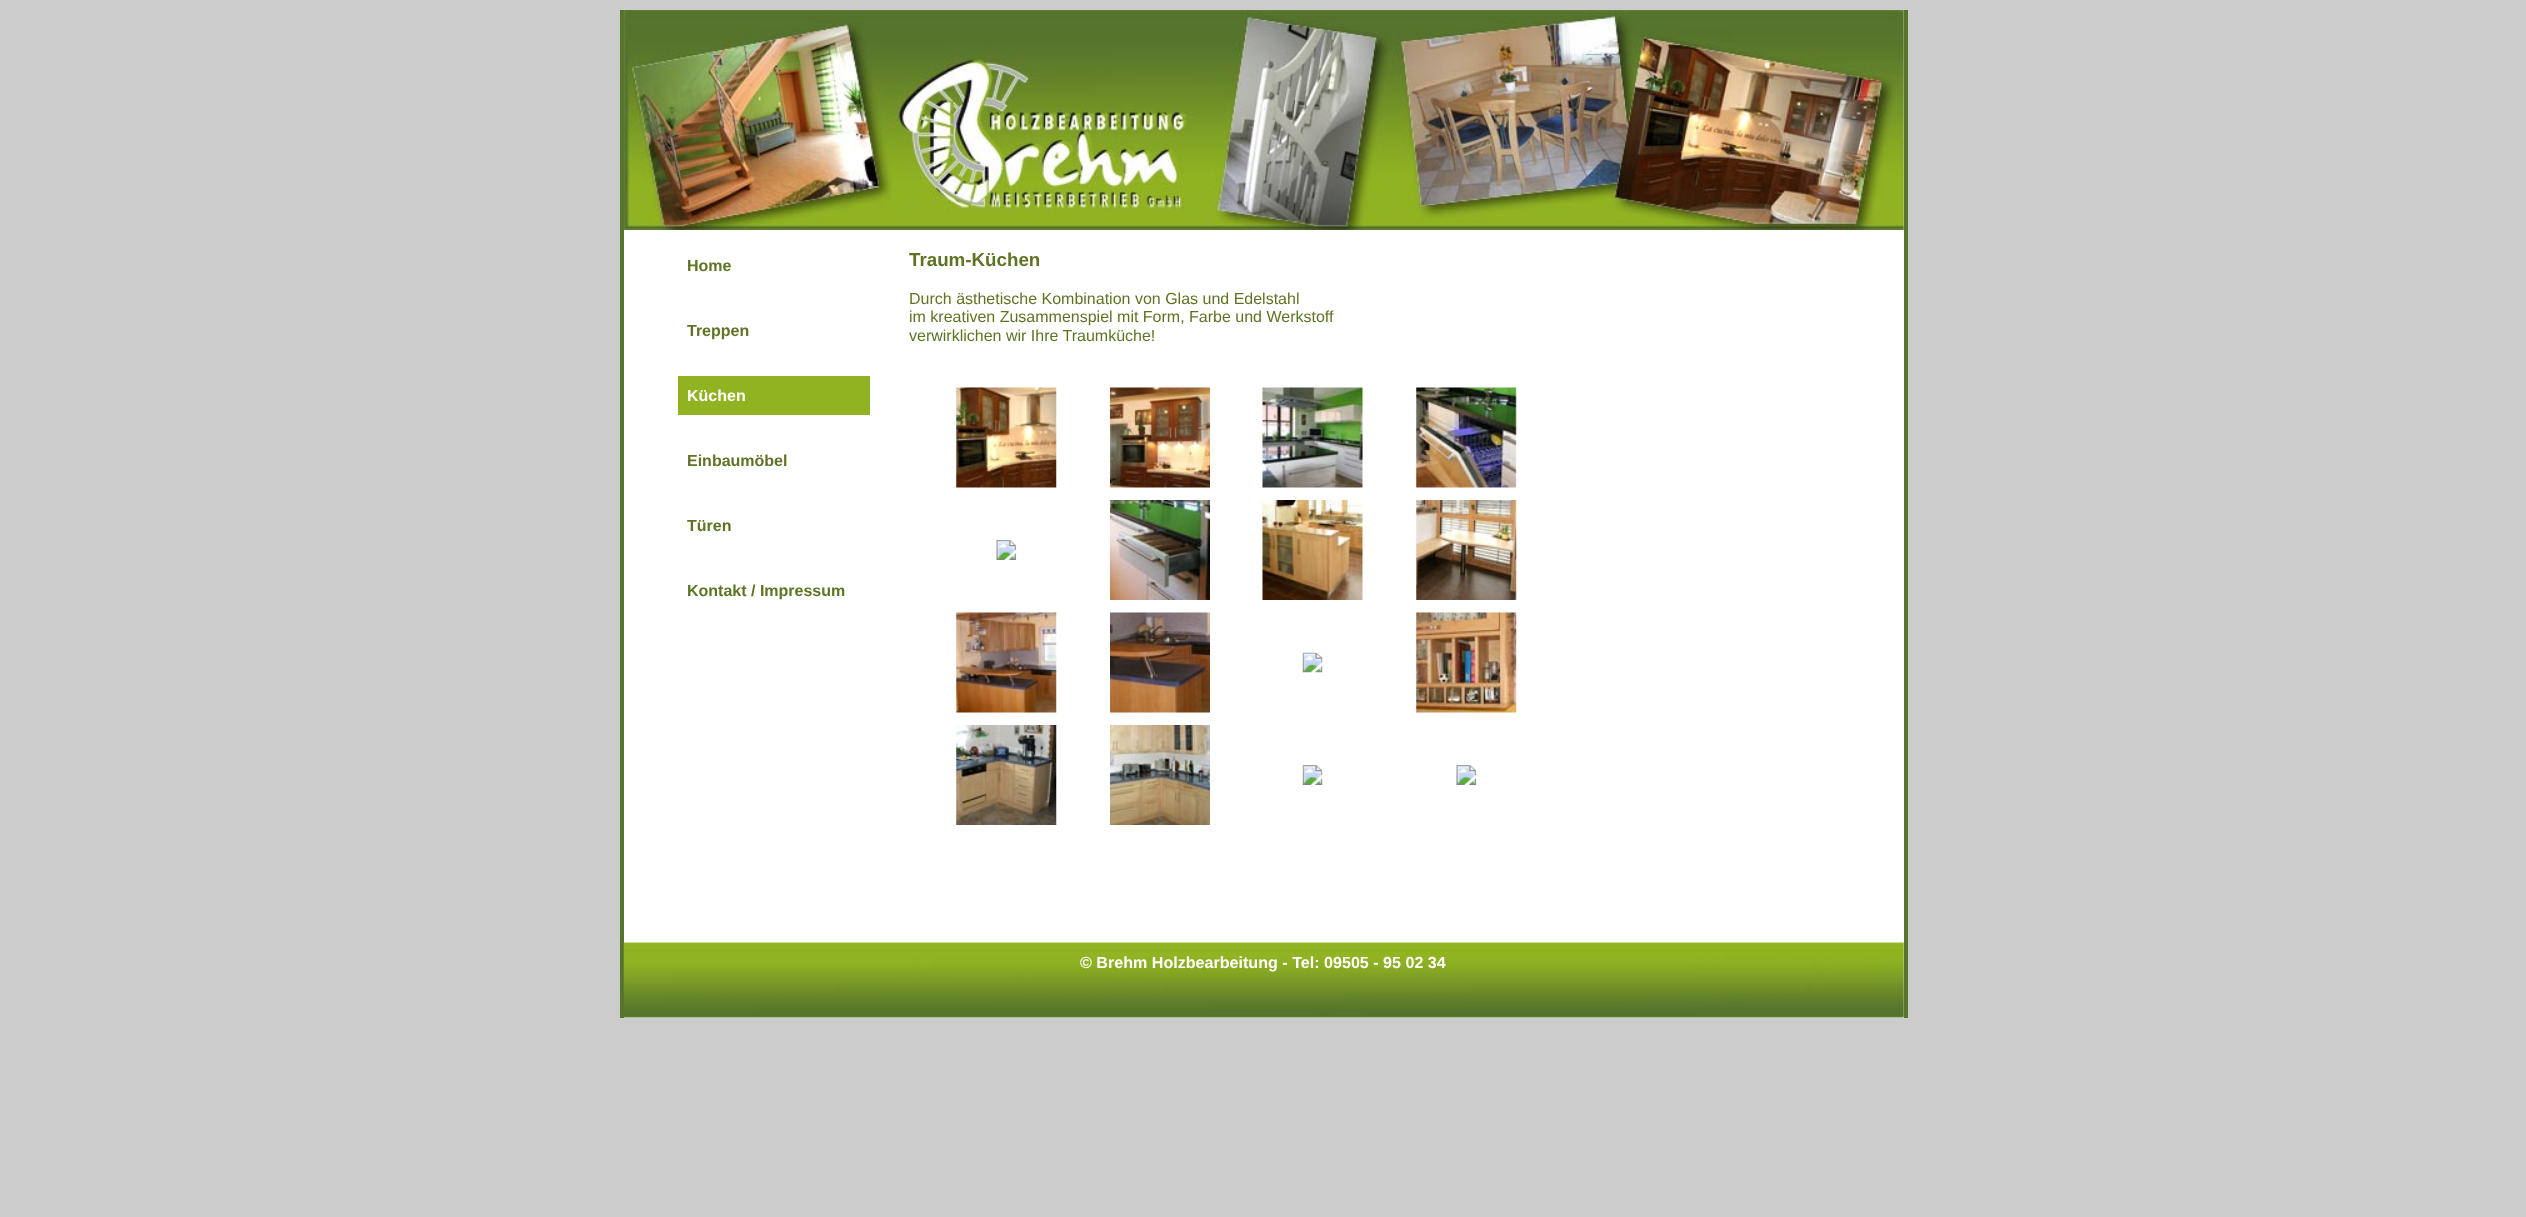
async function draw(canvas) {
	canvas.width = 2526;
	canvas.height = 1217;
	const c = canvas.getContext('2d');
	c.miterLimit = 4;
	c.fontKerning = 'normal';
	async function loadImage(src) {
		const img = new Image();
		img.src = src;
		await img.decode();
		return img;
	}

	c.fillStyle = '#ccc';
	c.fillRect(0, 0, 2526, 1217);
	for (const [x, y, w, h, color] of [
		[624, 10, 1280, 1008, '#fff'],
		[1904, 10, 4, 1008, '#56742c'],
		[620, 10, 4, 1008, '#56742c'],
	]) {
		c.fillStyle = color;
		c.fillRect(x, y, w, h);
	}
	c.drawImage(await loadImage('img1.png'), 623, 10, 1281, 220);
	c.font = 'bold 16px Liberation Sans';
	c.fillStyle = '#5e7424';
	c.fillText('Home', 687, 271);
	c.fillText('Treppen', 687, 336);
	c.fillStyle = '#91b322';
	c.fillRect(678, 376, 192, 39);
	c.fillStyle = '#fff';
	c.fillText('Küchen', 687, 401);
	c.fillStyle = '#5e7424';
	for (const [text, x, y] of [
		['Einbaumöbel', 687, 466],
		['Türen', 687, 531],
		['Kontakt / Impressum', 687, 596],
	]) {
		c.fillText(text, x, y);
	}
	c.font = 'bold 18.75px Liberation Sans';
	c.fillText('Traum-Küchen', 909, 266);
	c.font = '16px Liberation Sans';
	for (const [text, x, y] of [
		['Durch ästhetische Kombination von Glas und Edelstahl', 909, 304],
		['im kreativen Zusammenspiel mit Form, Farbe und Werkstoff', 909, 322],
		['verwirklichen wir Ihre Traumküche!', 909, 341],
	]) {
		c.fillText(text, x, y);
	}
	c.drawImage(await loadImage('img2.png'), 956, 387, 561, 438);
	c.drawImage(await loadImage('img3.png'), 623, 942, 1281, 76);
	c.font = 'bold 16.1px Liberation Sans';
	c.fillStyle = '#fff';
	c.fillText('© Brehm Holzbearbeitung - Tel: 09505 - 95 02 34', 1080, 968);
}

draw(document.querySelector('canvas'));
